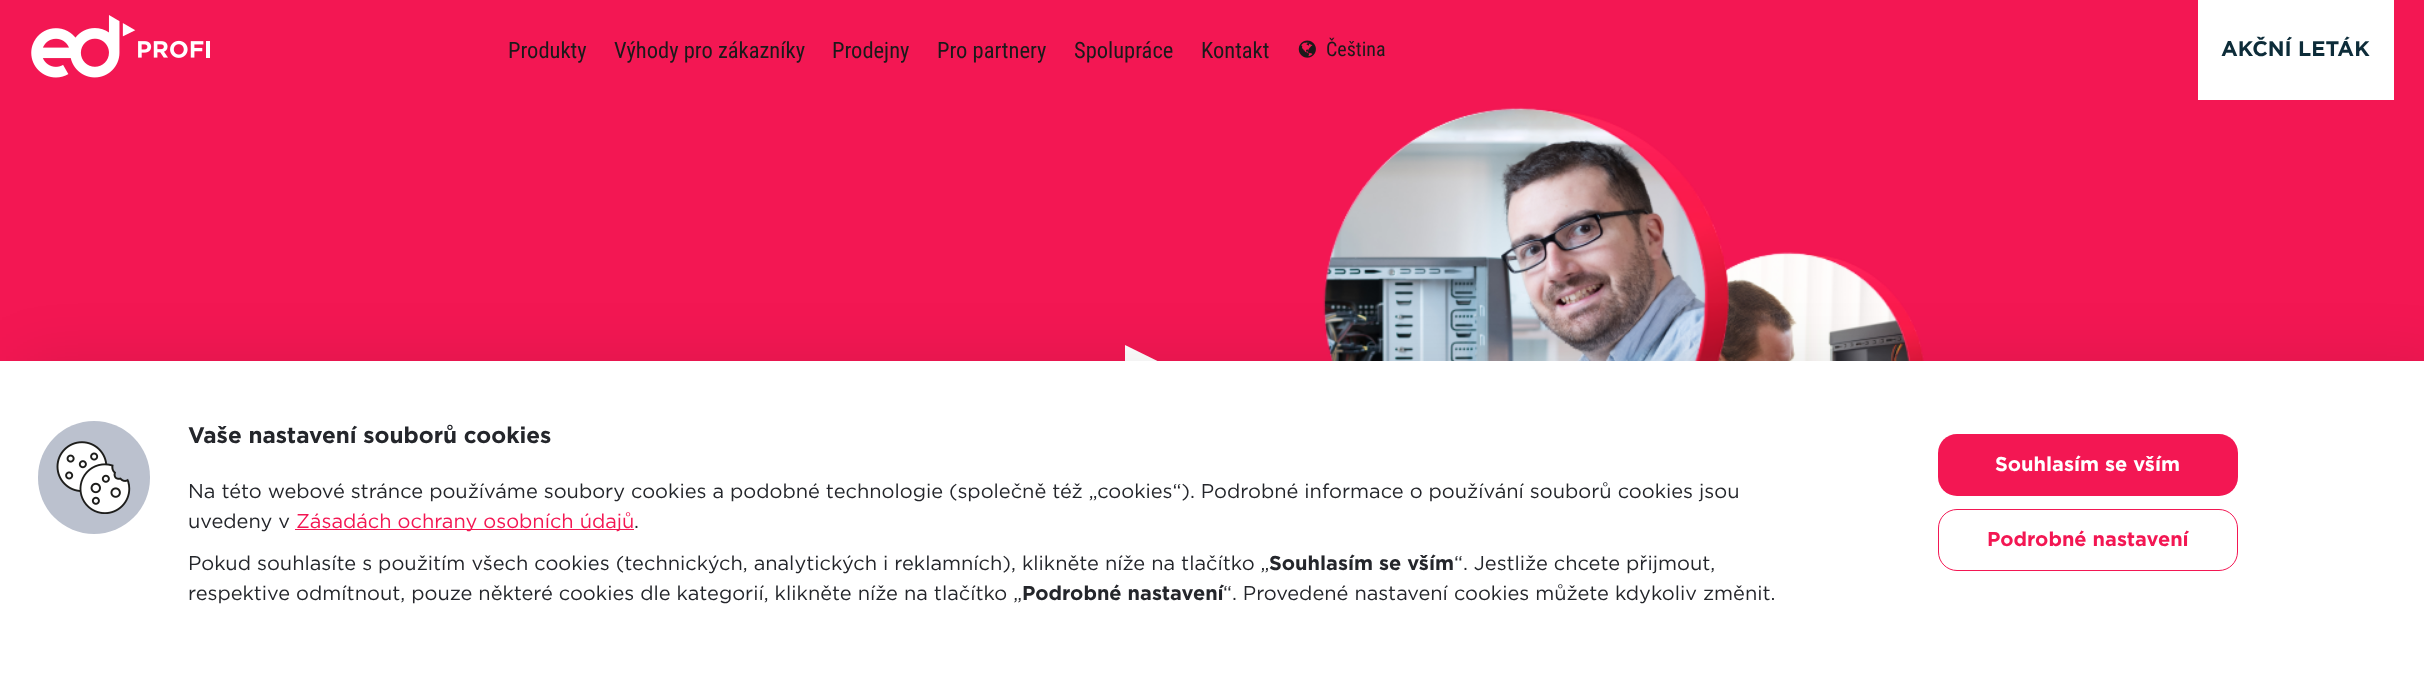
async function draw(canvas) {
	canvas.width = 2424;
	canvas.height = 681;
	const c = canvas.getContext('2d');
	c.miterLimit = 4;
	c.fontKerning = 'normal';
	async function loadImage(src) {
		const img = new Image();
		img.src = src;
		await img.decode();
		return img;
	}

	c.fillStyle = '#f31753';
	c.fillRect(0, 0, 2424, 681);
	c.drawImage(await loadImage('img1.png'), 31, 15, 179, 63);
	c.font = '22.5px Roboto Condensed';
	c.fillStyle = '#1a1a1a';
	for (const [text, x, y] of [
		['Produkty', 508, 58],
		['Výhody pro zákazníky', 614, 58],
		['Prodejny', 832, 58],
		['Pro partnery', 937, 58],
		['Spolupráce', 1074, 58],
		['Kontakt', 1201, 58],
	]) {
		c.fillText(text, x, y);
	}
	c.drawImage(await loadImage('img2.png'), 1298, 40, 18, 18);
	c.font = '20px Roboto Condensed';
	c.fillText('Čeština', 1326, 56);
	c.fillStyle = '#fff';
	c.fillRect(2198, 0, 196, 100);
	c.font = 'bold 21.25px Gotham';
	c.fillStyle = '#0d2c39';
	c.fillText('AKČNÍ LETÁK', 2221, 56);
	c.fillStyle = '#fff';
	c.beginPath();
	c.moveTo(1125, 377.5);
	c.lineTo(1125, 345);
	c.lineTo(1157.5, 361);
	c.closePath();
	c.fill();
	c.drawImage(await loadImage('img4.png'), 1717, 252, 207, 109);
	c.drawImage(await loadImage('img3.png'), 1323, 107, 407, 254);
	c.fillStyle = '#00000017';
	c.filter = 'blur(31px)';
	c.beginPath();
	c.rect(20, 361, 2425, 320);
	c.fill();
	c.filter = 'none';
	c.fillStyle = '#fff';
	c.fillRect(0, 361, 2424, 320);
	c.fillStyle = '#bbc1ce';
	c.beginPath();
	c.roundRect(38, 421, 112, 113, 56);
	c.fill();
	c.drawImage(await loadImage('img5.png'), 56, 441, 75, 73);
	c.font = 'bold 22.5px Gotham';
	c.fillStyle = '#24262b';
	c.fillText('Vaše nastavení souborů cookies', 188, 443);
	c.font = '20px Gotham';
	c.fillText('Na této webové stránce používáme soubory cookies a podobné technologie (společně též „cookies“). Podrobné informace o používání souborů cookies jsou', 188, 498);
	c.fillText('uvedeny v', 188, 528);
	c.fillStyle = '#f31753';
	c.fillRect(295, 529, 339, 1);
	c.fillText('Zásadách ochrany osobních údajů', 296, 528);
	c.fillStyle = '#24262b';
	c.fillText('.', 634, 528);
	c.fillText('Pokud souhlasíte s použitím všech cookies (technických, analytických i reklamních), klikněte níže na tlačítko „', 188, 570);
	c.font = 'bold 20px Gotham';
	c.fillText('Souhlasím se vším', 1269, 570);
	c.font = '20px Gotham';
	c.fillText('“. Jestliže chcete přijmout,', 1454, 570);
	c.fillText('respektive odmítnout, pouze některé cookies dle kategorií, klikněte níže na tlačítko „', 188, 600);
	c.font = 'bold 20px Gotham';
	c.fillText('Podrobné nastavení', 1022, 600);
	c.font = '20px Gotham';
	c.fillText('“. Provedené nastavení cookies můžete kdykoliv změnit.', 1223, 600);
	c.fillStyle = '#f31753';
	c.beginPath();
	c.roundRect(1938, 434, 300, 62, 19);
	c.fill();
	c.font = 'bold 20px Gotham';
	c.fillStyle = '#fff';
	c.fillText('Souhlasím se vším', 1995, 471);
	c.beginPath();
	c.roundRect(1938.5, 509.5, 299, 61, 18.5);
	c.strokeStyle = '#f31753';
	c.stroke();
	c.fillStyle = '#f31753';
	c.fillText('Podrobné nastavení', 1987, 546);
}

draw(document.querySelector('canvas'));
